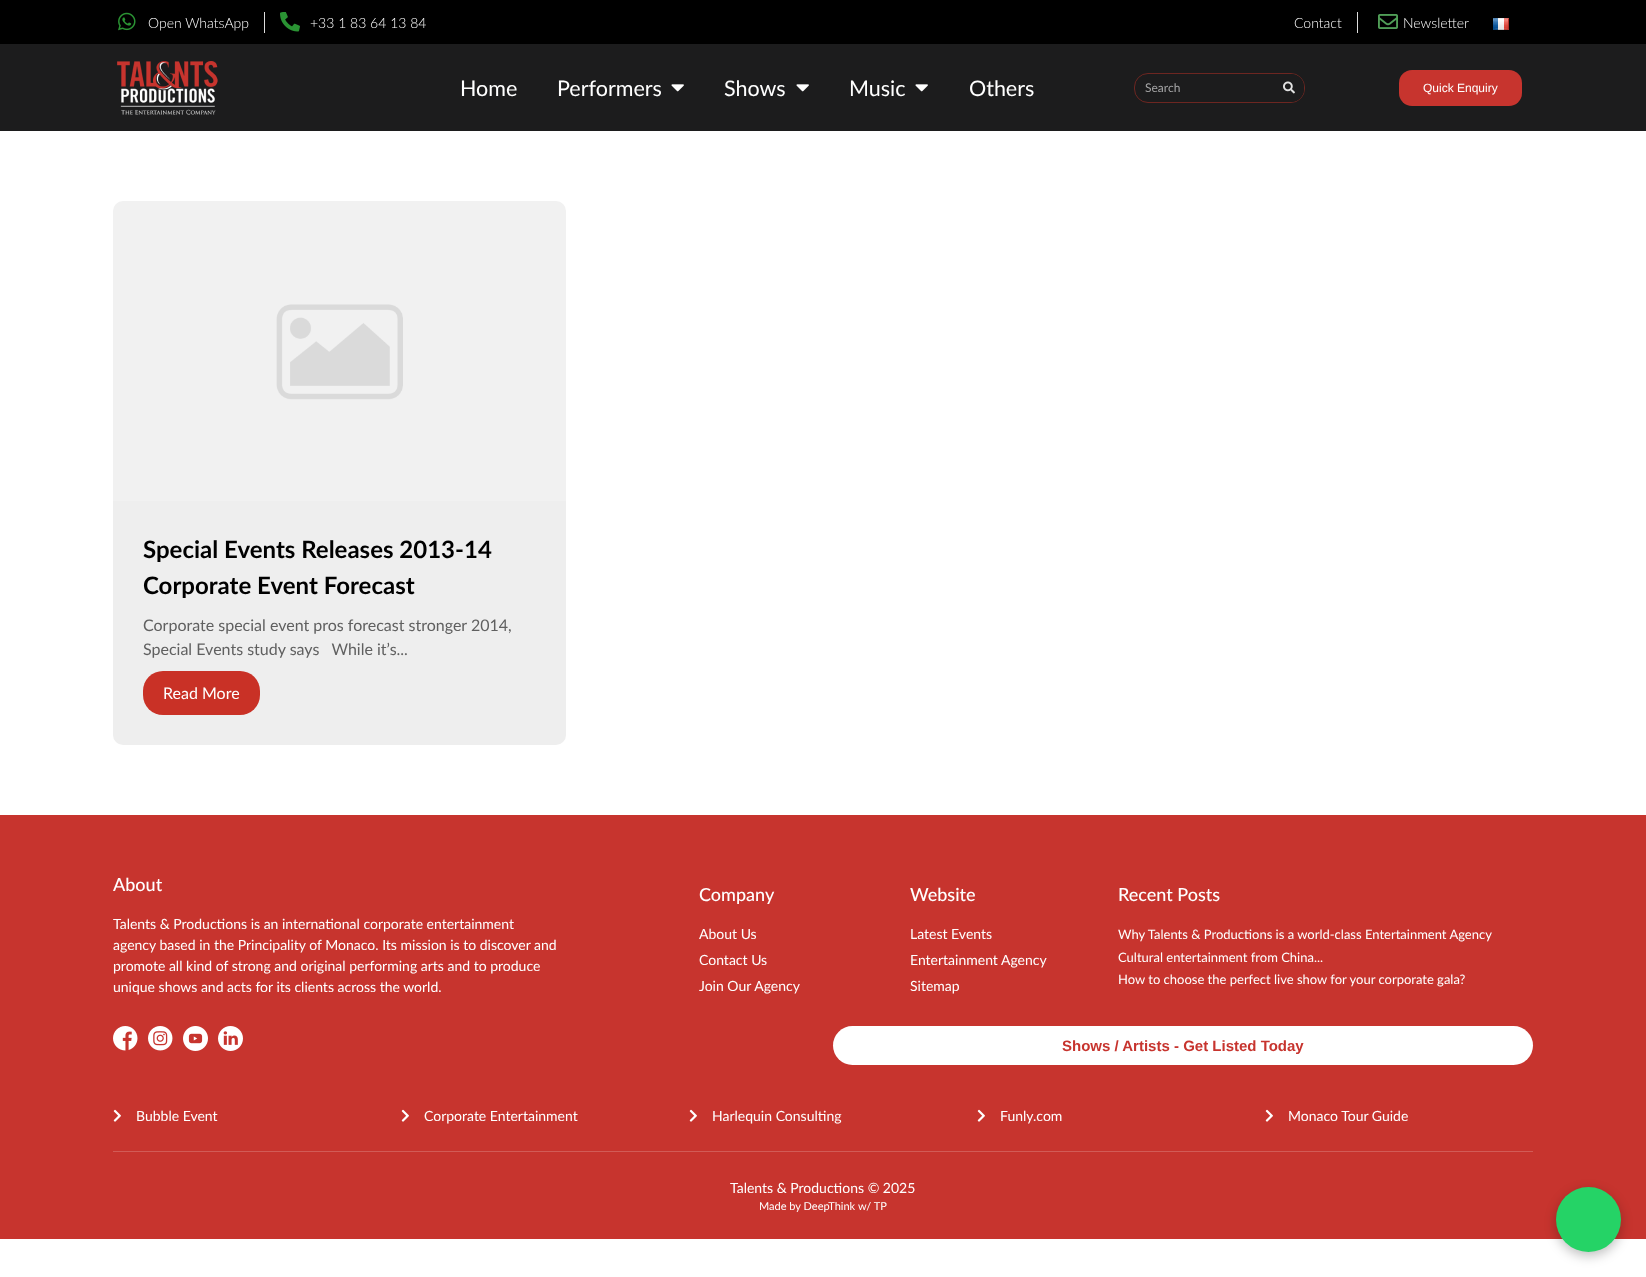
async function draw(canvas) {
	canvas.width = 1646;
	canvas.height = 1277;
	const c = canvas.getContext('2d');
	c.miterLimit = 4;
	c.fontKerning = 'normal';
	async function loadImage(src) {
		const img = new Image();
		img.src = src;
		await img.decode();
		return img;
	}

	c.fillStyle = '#fff';
	c.fillRect(0, 0, 1646, 1277);
	c.fillStyle = '#000';
	c.fillRect(0, 0, 1646, 44);
	c.drawImage(await loadImage('img1.png'), 118, 12, 18, 19);
	c.font = '300 14px Lato';
	c.fillStyle = '#fff';
	c.fillText('Open WhatsApp', 148, 28);
	c.fillStyle = '#ddd';
	c.fillRect(264, 12, 1, 21);
	c.drawImage(await loadImage('img2.png'), 280, 12, 20, 20);
	c.fillStyle = '#fff';
	c.fillText('+33 1 83 64 13 84', 310, 28);
	c.fillText('Contact', 1294, 28);
	c.fillStyle = '#ddd';
	c.fillRect(1357, 12, 1, 21);
	c.drawImage(await loadImage('img3.png'), 1378, 14, 20, 15);
	c.fillStyle = '#fff';
	c.fillText('Newsletter', 1403, 28);
	c.drawImage(await loadImage('img4.png'), 1493, 18, 16, 12);
	c.fillStyle = '#1c1c1d';
	c.fillRect(0, 44, 1646, 87);
	c.drawImage(await loadImage('img5.png'), 117, 61, 101, 54);
	c.font = '21.5px Lato';
	c.fillStyle = '#fff';
	c.fillText('Home', 460, 96);
	c.fillText('Performers', 557, 96);
	c.drawImage(await loadImage('img6.png'), 671, 84, 13, 8);
	c.fillText('Shows', 724, 96);
	c.drawImage(await loadImage('img6.png'), 796, 84, 13, 8);
	c.fillText('Music', 849, 96);
	c.drawImage(await loadImage('img6.png'), 915, 84, 13, 8);
	c.fillText('Others', 969, 96);
	c.beginPath();
	c.roundRect(1134.5, 73.5, 170, 29, 13.5);
	c.strokeStyle = '#6d2621';
	c.stroke();
	c.font = '12px Lato';
	c.fillStyle = '#a4a4a5';
	c.fillText('Search', 1145, 92);
	c.fillStyle = '#1c1c1d';
	c.beginPath();
	c.roundRect(1274, 74, 30, 28, [0, 13, 13, 0]);
	c.fill();
	c.drawImage(await loadImage('img7.png'), 1283, 81, 12, 13);
	c.fillStyle = '#c7342e';
	c.beginPath();
	c.roundRect(1399, 70, 123, 36, 13);
	c.fill();
	c.font = '12px Liberation Sans';
	c.fillStyle = '#fff';
	c.fillText('Quick Enquiry', 1423, 92);
	c.drawImage(await loadImage('img8.png'), 113, 201, 453, 300);
	c.fillStyle = '#eee';
	c.beginPath();
	c.roundRect(113, 501, 453, 244, [0, 0, 10, 10]);
	c.fill();
	c.font = 'bold 24px Lato';
	c.fillStyle = '#000';
	c.fillText('Special Events Releases 2013-14', 143, 558);
	c.fillText('Corporate Event Forecast', 143, 594);
	c.font = '16px Lato';
	c.fillStyle = '#606060';
	c.fillText('Corporate special event pros forecast stronger 2014,', 143, 631);
	c.fillText('Special Events study says   While it’s...', 143, 655);
	c.fillStyle = '#c93126';
	c.beginPath();
	c.roundRect(143, 671, 117, 44, 20);
	c.fill();
	c.fillStyle = '#fff';
	c.fillText('Read More', 163, 699);
	c.fillStyle = '#c7342e';
	c.fillRect(0, 815, 1646, 424);
	c.font = '500 18px Lato';
	c.fillStyle = '#fff';
	c.fillText('About', 113, 891);
	c.font = '14px Lato';
	for (const [text, x, y] of [
		['Talents & Productions is an international corporate entertainment', 113, 929],
		['agency based in the Principality of Monaco. Its mission is to discover and', 113, 950],
		['promote all kind of strong and original performing arts and to produce', 113, 971],
		['unique shows and acts for its clients across the world.', 113, 992],
	]) {
		c.fillText(text, x, y);
	}
	c.font = '500 18px Lato';
	c.fillText('Company', 699, 901);
	c.font = '14px Lato';
	for (const [text, x, y] of [
		['About Us', 699, 939],
		['Contact Us', 699, 965],
		['Join Our Agency', 699, 991],
	]) {
		c.fillText(text, x, y);
	}
	c.font = '500 18px Lato';
	c.fillText('Website', 910, 901);
	c.font = '14px Lato';
	for (const [text, x, y] of [
		['Latest Events', 910, 939],
		['Entertainment Agency', 910, 965],
		['Sitemap', 910, 991],
	]) {
		c.fillText(text, x, y);
	}
	c.font = '500 18px Lato';
	c.fillText('Recent Posts', 1118, 901);
	c.font = '13px Lato';
	for (const [text, x, y] of [
		['Why Talents & Productions is a world-class Entertainment Agency', 1118, 939],
		['Cultural entertainment from China...', 1118, 962],
		['How to choose the perfect live show for your corporate gala?', 1118, 984],
	]) {
		c.fillText(text, x, y);
	}
	c.drawImage(await loadImage('img9.png'), 113, 1026, 25, 25);
	c.drawImage(await loadImage('img10.png'), 148, 1026, 25, 25);
	c.drawImage(await loadImage('img11.png'), 183, 1026, 25, 25);
	c.drawImage(await loadImage('img12.png'), 218, 1026, 25, 25);
	c.beginPath();
	c.roundRect(833, 1026, 700, 39, 19.5);
	c.fill();
	c.font = 'bold 15px Liberation Sans';
	c.fillStyle = '#c7342e';
	c.fillText('Shows / Artists - Get Listed Today', 1062, 1051);
	c.drawImage(await loadImage('img13.png'), 113, 1109, 8, 13);
	c.font = '14px Lato';
	c.fillStyle = '#fff';
	c.fillText('Bubble Event', 136, 1121);
	c.drawImage(await loadImage('img13.png'), 401, 1109, 8, 13);
	c.fillText('Corporate Entertainment', 424, 1121);
	c.drawImage(await loadImage('img13.png'), 689, 1109, 8, 13);
	c.fillText('Harlequin Consulting', 712, 1121);
	c.drawImage(await loadImage('img13.png'), 977, 1109, 8, 13);
	c.fillText('Funly.com', 1000, 1121);
	c.drawImage(await loadImage('img13.png'), 1265, 1109, 8, 13);
	c.fillText('Monaco Tour Guide', 1288, 1121);
	c.fillStyle = '#d25b56';
	c.fillRect(113, 1151, 1420, 1);
	c.fillStyle = '#fff';
	c.fillText('Talents & Productions © 2025', 730, 1193);
	c.font = '11px Lato';
	c.fillText('Made by DeepThink', 759, 1210);
	c.fillText('w/ TP', 858, 1210);
	c.fillStyle = '#00000040';
	c.filter = 'blur(6px)';
	c.beginPath();
	c.roundRect(1556, 1191, 65, 65, 32.5);
	c.fill();
	c.filter = 'none';
	c.fillStyle = '#25d366';
	c.beginPath();
	c.arc(1588.5, 1219.5, 32.5, 0, 2 * Math.PI);
	c.fill();
}

draw(document.querySelector('canvas'));
